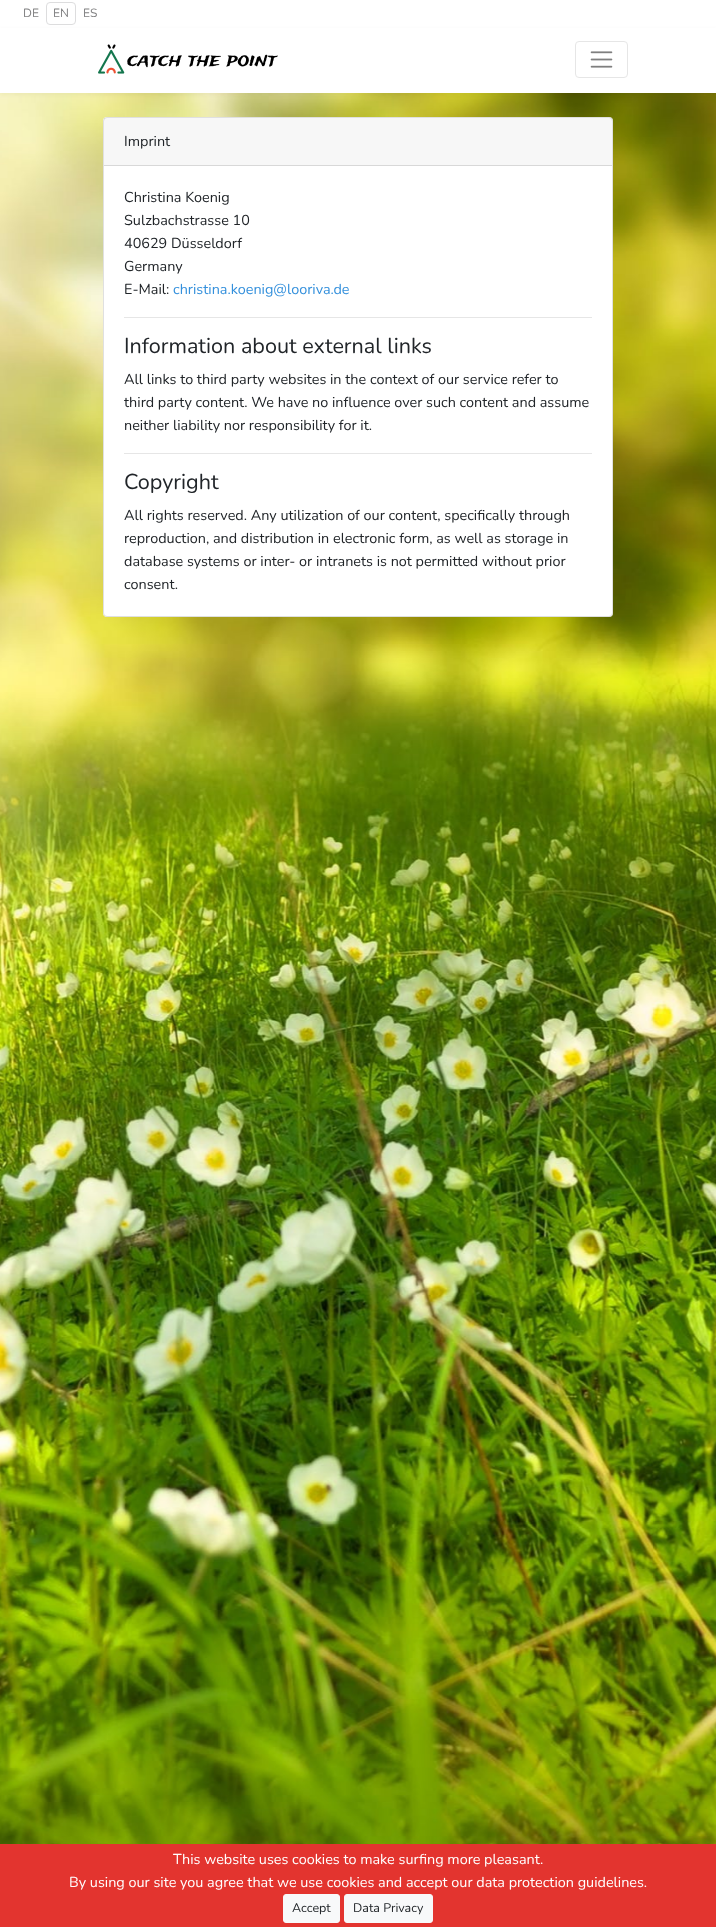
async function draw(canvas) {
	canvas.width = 716;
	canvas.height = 1927;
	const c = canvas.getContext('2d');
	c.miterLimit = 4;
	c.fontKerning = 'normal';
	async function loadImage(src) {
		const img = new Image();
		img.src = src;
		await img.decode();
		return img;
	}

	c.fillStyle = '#fff';
	c.fillRect(0, 0, 716, 1927);
	c.drawImage(await loadImage('img1.png'), 0, 93, 716, 1751);
	c.font = '200 12px Nunito';
	c.fillStyle = '#818182';
	c.fillText('DE', 23, 17);
	c.beginPath();
	c.roundRect(46.5, 2.5, 29, 22, 3.5);
	c.strokeStyle = '#ddddde';
	c.stroke();
	c.fillText('EN', 53, 17);
	c.fillText('ES', 83, 17);
	c.fillStyle = '#0000000a';
	c.filter = 'blur(2px)';
	c.beginPath();
	c.rect(0, 29, 716, 66);
	c.fill();
	c.filter = 'none';
	c.fillStyle = '#fff';
	c.fillRect(0, 28, 716, 65);
	c.drawImage(await loadImage('img2.png'), 98, 44, 180, 30);
	c.beginPath();
	c.roundRect(575.5, 41.5, 52, 36, 3.5);
	c.strokeStyle = '#e6e6e6';
	c.stroke();
	c.drawImage(await loadImage('img3.png'), 590, 51, 23, 17);
	c.beginPath();
	c.roundRect(103, 117, 510, 500, 4);
	c.fill();
	c.beginPath();
	c.roundRect(103.5, 117.5, 509, 499, 3.5);
	c.strokeStyle = '#0000001f';
	c.stroke();
	c.fillStyle = '#00000008';
	c.fillRect(104, 118, 508, 47);
	c.fillStyle = '#d8d8d8';
	c.fillRect(104, 165, 508, 1);
	c.font = '200 14.4px Nunito';
	c.fillStyle = '#212529';
	for (const [text, x, y] of [
		['Imprint', 124, 146],
		['Christina Koenig', 124, 202],
		['Sulzbachstrasse 10', 124, 225],
		['40629 Düsseldorf', 124, 248],
		['Germany', 124, 271],
		['E-Mail:', 124, 294],
	]) {
		c.fillText(text, x, y);
	}
	c.fillStyle = '#3490dc';
	c.fillText('christina.koenig@looriva.de', 173, 294);
	c.fillStyle = '#e6e6e6';
	c.fillRect(124, 317, 468, 1);
	c.font = '200 21.6px Nunito';
	c.fillStyle = '#212529';
	c.fillText('Information about external links', 124, 353);
	c.font = '200 14.4px Nunito';
	for (const [text, x, y] of [
		['All links to third party websites in the context of our service refer to', 124, 384],
		['third party content. We have no influence over such content and assume', 124, 407],
		['neither liability nor responsibility for it.', 124, 430],
	]) {
		c.fillText(text, x, y);
	}
	c.fillStyle = '#e6e6e6';
	c.fillRect(124, 453, 468, 1);
	c.font = '200 21.6px Nunito';
	c.fillStyle = '#212529';
	c.fillText('Copyright', 124, 489);
	c.font = '200 14.4px Nunito';
	for (const [text, x, y] of [
		['All rights reserved. Any utilization of our content, specifically through', 124, 520],
		['reproduction, and distribution in electronic form, as well as storage in', 124, 543],
		['database systems or inter- or intranets is not permitted without prior', 124, 566],
		['consent.', 124, 589],
	]) {
		c.fillText(text, x, y);
	}
	c.fillStyle = '#e3342f';
	c.fillRect(0, 1844, 716, 83);
	c.fillStyle = '#fff';
	c.fillText('This website uses cookies to make surfing more pleasant.', 173, 1864);
	c.fillText('By using our site you agree that we use cookies and accept our data protection guidelines.', 69, 1887);
	c.fillStyle = '#f8f9fa';
	c.beginPath();
	c.roundRect(283.5, 1894.5, 56, 28, 2.5);
	c.fill();
	c.strokeStyle = '#f8f9fa';
	c.stroke();
	c.font = '200 12.5px Nunito';
	c.fillStyle = '#212529';
	c.fillText('Accept', 292, 1912);
	c.fillStyle = '#f8f9fa';
	c.beginPath();
	c.roundRect(344.5, 1894.5, 88, 28, 2.5);
	c.fill();
	c.stroke();
	c.fillStyle = '#212529';
	c.fillText('Data Privacy', 353, 1912);
}

draw(document.querySelector('canvas'));
